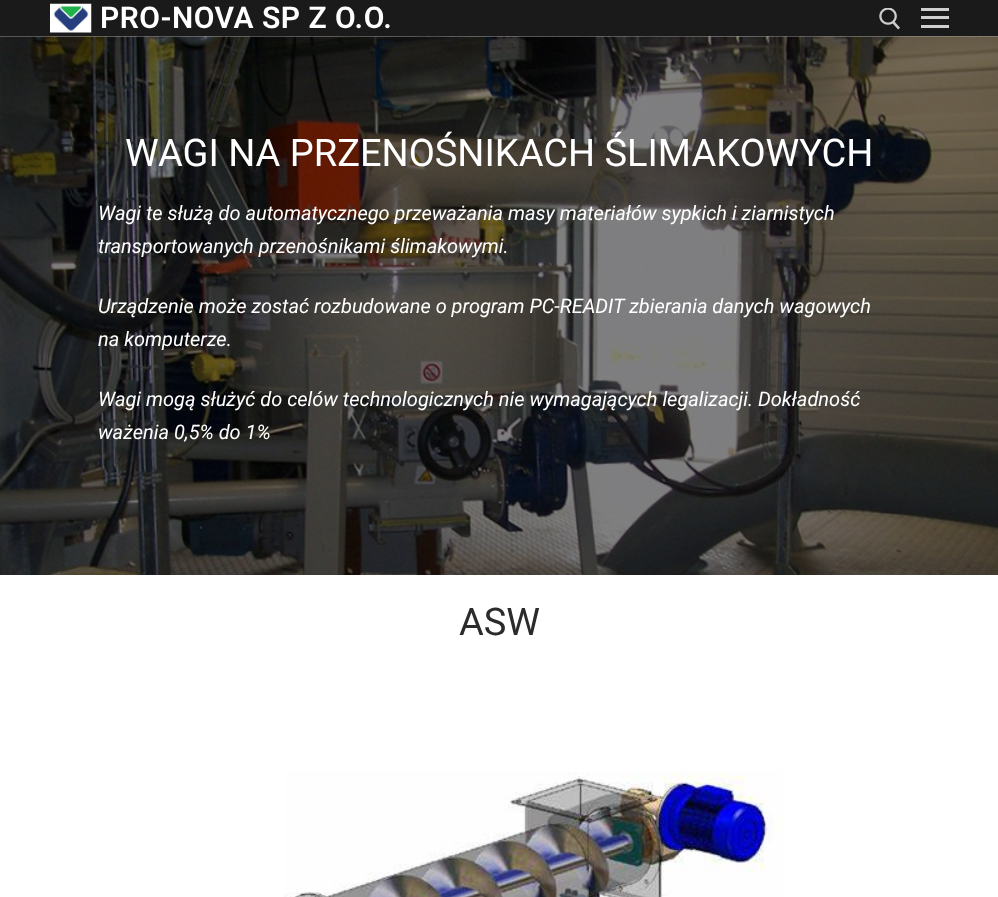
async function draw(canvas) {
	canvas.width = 998;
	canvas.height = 897;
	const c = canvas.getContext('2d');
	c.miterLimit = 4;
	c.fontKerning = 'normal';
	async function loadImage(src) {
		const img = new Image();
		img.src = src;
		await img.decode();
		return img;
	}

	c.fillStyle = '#fff';
	c.fillRect(0, 0, 998, 897);
	c.fillStyle = '#1a1a1a';
	c.fillRect(0, 0, 998, 36);
	c.drawImage(await loadImage('img1.png'), 50, 3, 42, 30);
	c.letterSpacing = '0.5px';
	c.font = '600 30px Roboto';
	c.fillStyle = '#fff';
	c.fillText('PRO-NOVA SP Z O.O.', 100, 28);
	c.drawImage(await loadImage('img2.png'), 879, 8, 21, 22);
	for (const [x, y, w, h, color] of [
		[921, 16, 28, 3, '#cfcfcf'],
		[921, 8, 28, 3, '#cfcfcf'],
		[921, 25, 28, 3, '#cfcfcf'],
	]) {
		c.fillStyle = color;
		c.fillRect(x, y, w, h);
	}
	c.drawImage(await loadImage('img3.png'), 0, 36, 998, 539);
	c.letterSpacing = '0px';
	c.font = '38px Roboto';
	c.fillStyle = '#fff';
	c.fillText('WAGI NA PRZENOŚNIKACH ŚLIMAKOWYCH', 125, 166);
	c.font = 'italic 20px Roboto';
	for (const [text, x, y] of [
		['Wagi te służą do automatycznego przeważania masy materiałów sypkich i ziarnistych', 98, 220],
		['transportowanych przenośnikami ślimakowymi.', 98, 253],
		['Urządzenie może zostać rozbudowane o program PC-READIT zbierania danych wagowych', 98, 313],
		['na komputerze.', 98, 346],
		['Wagi mogą służyć do celów technologicznych nie wymagających legalizacji. Dokładność', 98, 406],
		['ważenia 0,5% do 1%', 98, 439],
	]) {
		c.fillText(text, x, y);
	}
	c.font = '38px Roboto';
	c.fillStyle = '#2b2b2b';
	c.fillText('ASW', 459, 635);
	c.drawImage(await loadImage('img4.png'), 284, 771, 499, 126);
}

draw(document.querySelector('canvas'));
